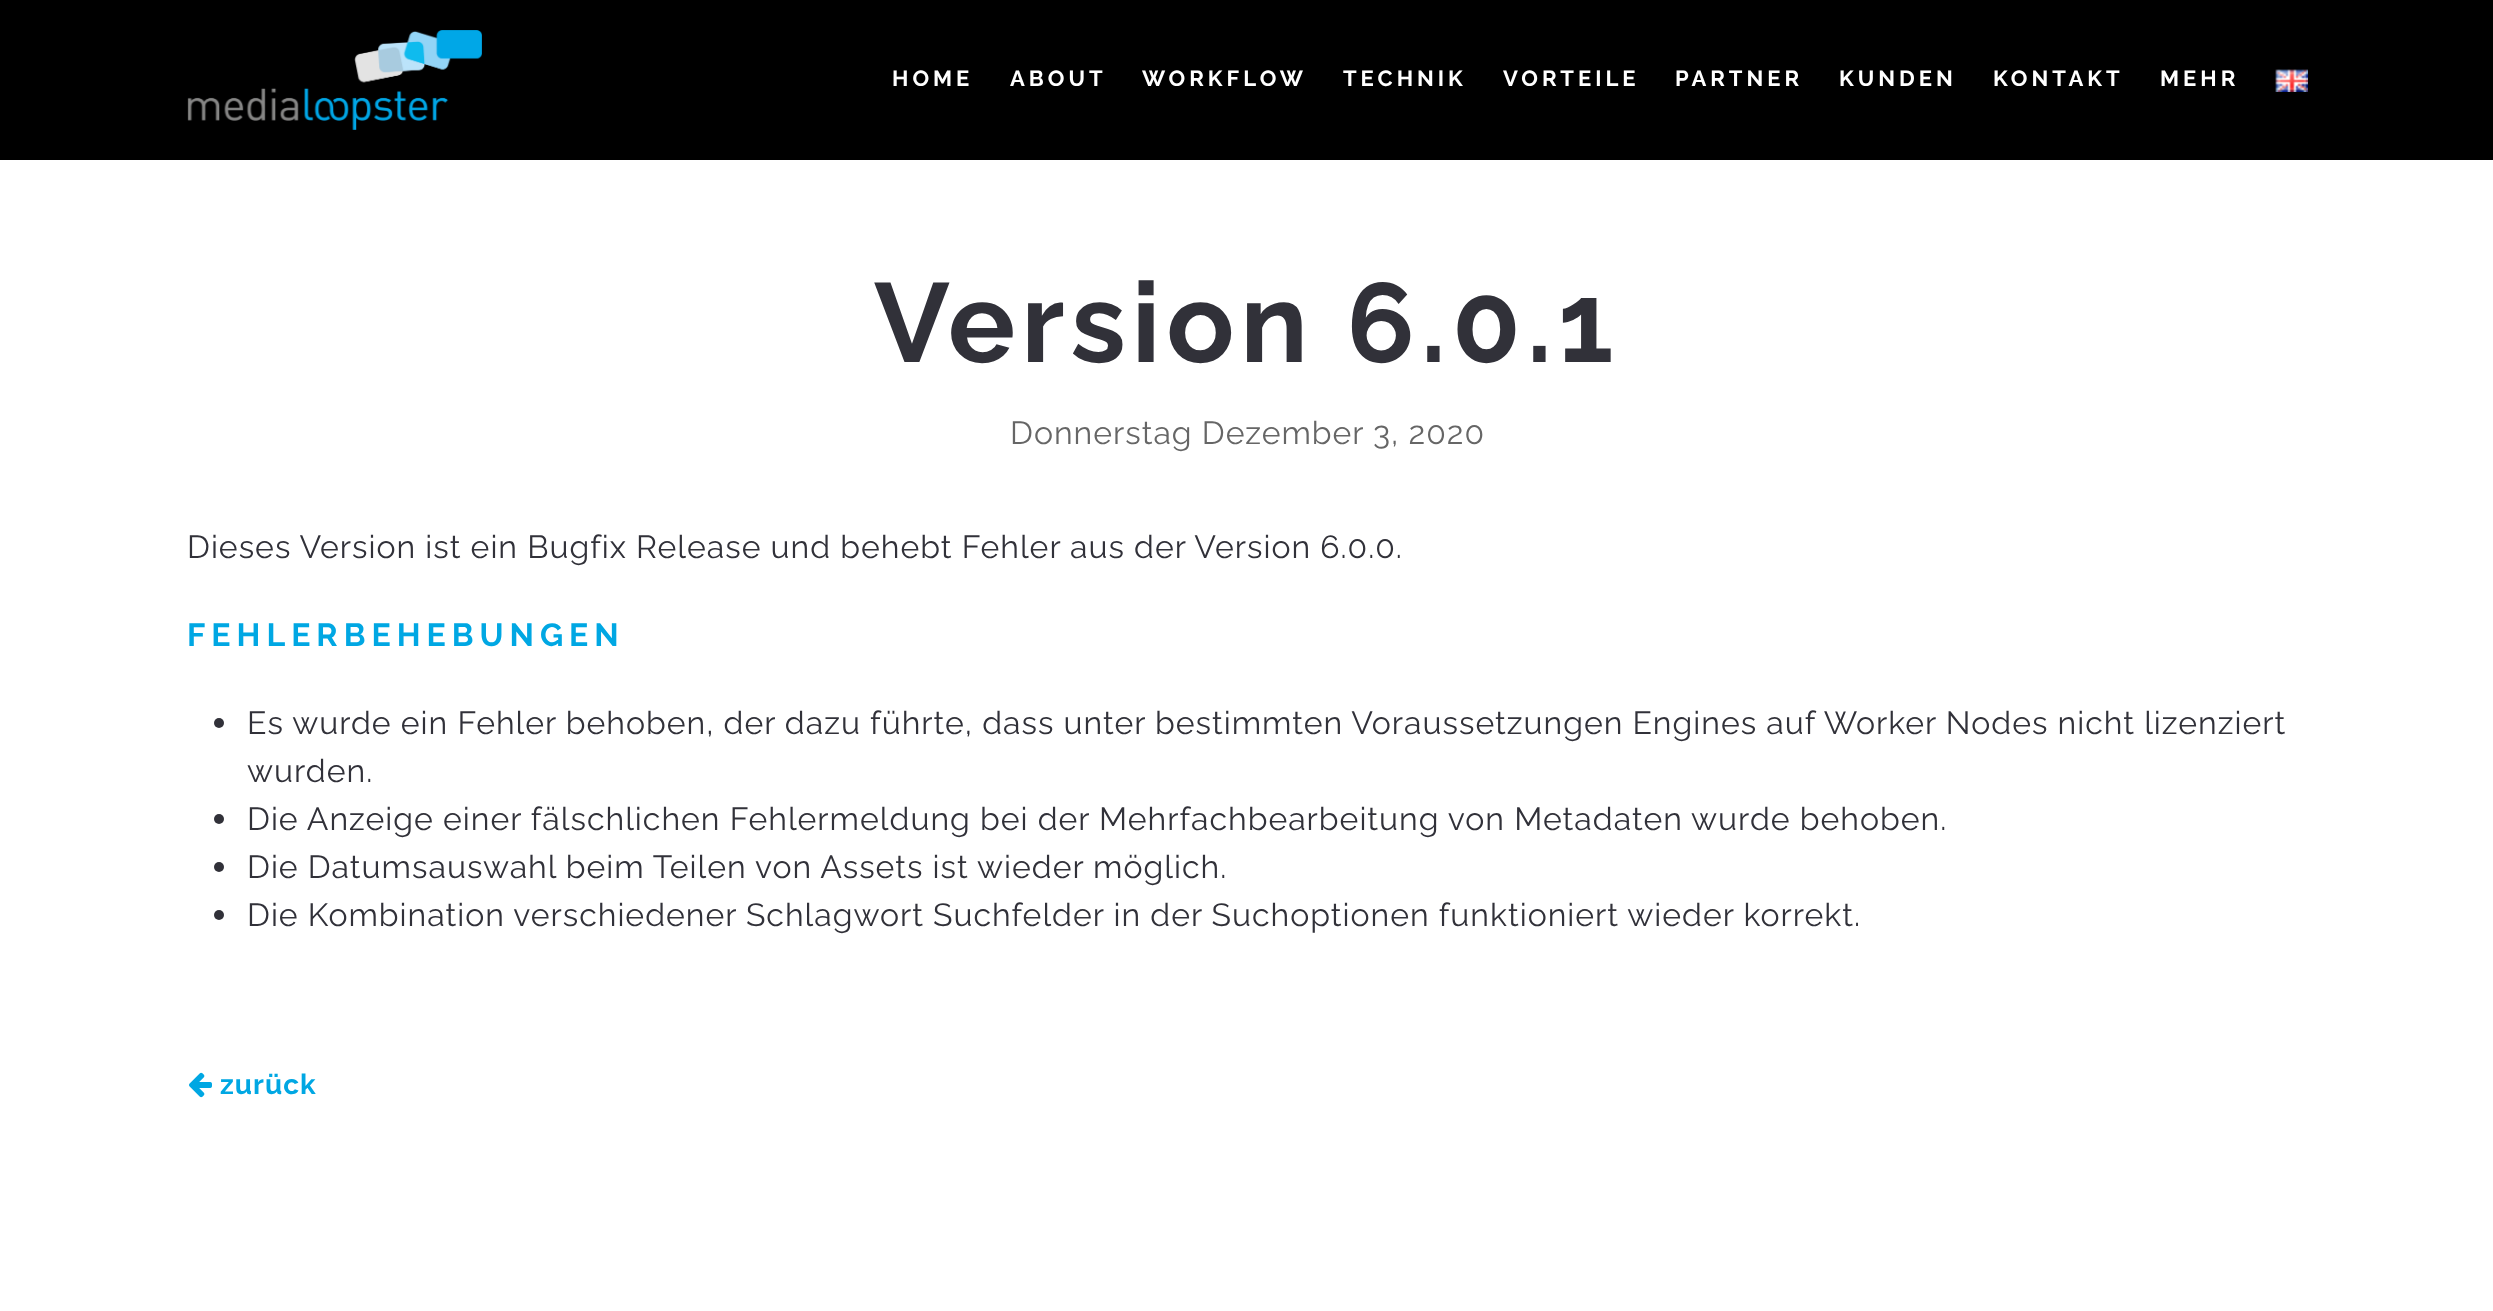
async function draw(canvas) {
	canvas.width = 2493;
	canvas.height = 1311;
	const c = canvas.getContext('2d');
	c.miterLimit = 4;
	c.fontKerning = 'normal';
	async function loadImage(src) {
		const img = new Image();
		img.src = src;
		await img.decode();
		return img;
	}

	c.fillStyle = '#fff';
	c.fillRect(0, 0, 2493, 1311);
	c.fillStyle = '#000';
	c.fillRect(0, 0, 2493, 160);
	c.drawImage(await loadImage('img1.png'), 187, 30, 295, 100);
	c.letterSpacing = '4px';
	c.font = '100 22px Raleway';
	c.fillStyle = '#fff';
	for (const [text, x, y] of [
		['HOME', 892, 86],
		['ABOUT', 1010, 86],
		['WORKFLOW', 1142, 86],
		['TECHNIK', 1343, 86],
		['VORTEILE', 1503, 86],
		['PARTNER', 1675, 86],
		['KUNDEN', 1839, 86],
		['KONTAKT', 1993, 86],
		['MEHR', 2160, 86],
	]) {
		c.fillText(text, x, y);
	}
	c.drawImage(await loadImage('img2.png'), 2275, 69, 33, 23);
	c.letterSpacing = '6px';
	c.font = '100 112px Raleway';
	c.fillStyle = '#313139';
	c.fillText('Version 6.0.1', 874, 362);
	c.letterSpacing = '1px';
	c.font = '100 32px "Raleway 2"';
	c.fillStyle = '#666';
	c.fillText('Donnerstag Dezember 3, 2020', 1010, 444);
	c.fillStyle = '#313139';
	c.fillText('Dieses Version ist ein Bugfix Release und behebt Fehler aus der Version 6.0.0.', 187, 558);
	c.letterSpacing = '6px';
	c.font = '100 32px Raleway';
	c.fillStyle = '#00a7e3';
	c.fillText('FEHLERBEHEBUNGEN', 187, 646);
	c.fillStyle = '#313139';
	c.beginPath();
	c.arc(219, 723, 5, 0, 2 * Math.PI);
	c.fill();
	c.letterSpacing = '1px';
	c.font = '100 32px "Raleway 2"';
	c.fillText('Es wurde ein Fehler behoben, der dazu führte, dass unter bestimmten Voraussetzungen Engines auf Worker Nodes nicht lizenziert', 247, 734);
	c.fillText('wurden.', 247, 782);
	c.beginPath();
	c.arc(219, 819, 5, 0, 2 * Math.PI);
	c.fill();
	c.fillText('Die Anzeige einer fälschlichen Fehlermeldung bei der Mehrfachbearbeitung von Metadaten wurde behoben.', 247, 830);
	c.beginPath();
	c.arc(219, 867, 5, 0, 2 * Math.PI);
	c.fill();
	c.fillText('Die Datumsauswahl beim Teilen von Assets ist wieder möglich.', 247, 878);
	c.beginPath();
	c.arc(219, 915, 5, 0, 2 * Math.PI);
	c.fill();
	c.fillText('Die Kombination verschiedener Schlagwort Suchfelder in der Suchoptionen funktioniert wieder korrekt.', 247, 926);
	c.drawImage(await loadImage('img3.png'), 189, 1072, 23, 26);
	c.font = '100 28px Raleway';
	c.fillStyle = '#00a7e3';
	c.fillText('zurück', 220, 1094);
}

draw(document.querySelector('canvas'));
